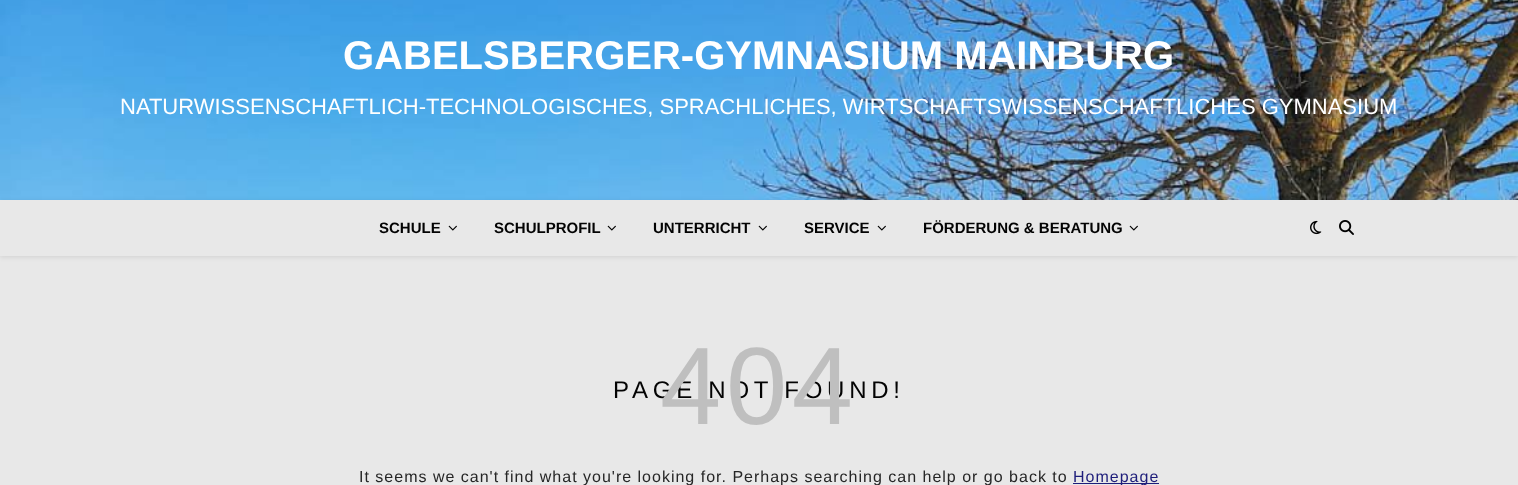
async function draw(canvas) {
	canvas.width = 1518;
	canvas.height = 485;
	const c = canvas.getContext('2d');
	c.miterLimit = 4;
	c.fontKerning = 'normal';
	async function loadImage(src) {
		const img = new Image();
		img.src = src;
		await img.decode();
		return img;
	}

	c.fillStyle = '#e8e8e8';
	c.fillRect(0, 0, 1518, 485);
	c.drawImage(await loadImage('img1.png'), 0, 0, 1518, 200);
	c.font = 'bold 40px Liberation Sans';
	c.fillStyle = '#fff';
	c.fillText('GABELSBERGER-GYMNASIUM MAINBURG', 343, 69);
	c.font = '22px Liberation Sans';
	c.fillText('NATURWISSENSCHAFTLICH-TECHNOLOGISCHES, SPRACHLICHES, WIRTSCHAFTSWISSENSCHAFTLICHES GYMNASIUM', 120, 114);
	c.save();
	c.beginPath();
	c.moveTo(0, 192);
	c.lineTo(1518, 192);
	c.lineTo(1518, 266);
	c.lineTo(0, 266);
	c.closePath();
	c.moveTo(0, 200);
	c.lineTo(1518, 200);
	c.lineTo(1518, 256);
	c.lineTo(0, 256);
	c.closePath();
	c.clip('evenodd');
	c.fillStyle = '#0000001a';
	c.filter = 'blur(2.5px)';
	c.beginPath();
	c.rect(0, 201, 1518, 56);
	c.fill();
	c.filter = 'none';
	c.restore();
	c.font = 'bold 15px Liberation Sans';
	c.fillStyle = '#030303';
	c.fillText('SCHULE', 379, 233);
	c.drawImage(await loadImage('img2.png'), 448, 225, 9, 6);
	c.fillText('SCHULPROFIL', 494, 233);
	c.drawImage(await loadImage('img2.png'), 607, 225, 9, 6);
	c.fillText('UNTERRICHT', 653, 233);
	c.drawImage(await loadImage('img2.png'), 758, 225, 9, 6);
	c.fillText('SERVICE', 804, 233);
	c.drawImage(await loadImage('img2.png'), 877, 225, 9, 6);
	c.fillText('FÖRDERUNG & BERATUNG', 923, 233);
	c.drawImage(await loadImage('img2.png'), 1129, 225, 9, 6);
	c.drawImage(await loadImage('img3.png'), 1310, 220, 12, 15);
	c.drawImage(await loadImage('img4.png'), 1339, 220, 15, 15);
	c.letterSpacing = '4.75px';
	c.font = '24px Liberation Sans';
	c.fillText('PAGE NOT FOUND!', 613, 398);
	c.font = '110px Liberation Sans';
	c.fillStyle = '#bfbfbf';
	c.fillText('404', 660, 424);
	c.letterSpacing = '1px';
	c.font = '16px Liberation Sans';
	c.fillStyle = '#262626';
	c.fillText('It seems we can\'t find what you\'re looking for. Perhaps searching can help or go back to', 359, 482);
	c.fillStyle = '#1e1d7a';
	c.fillRect(1073, 483, 86, 1);
	c.fillText('Homepage', 1073, 482);
}

draw(document.querySelector('canvas'));
